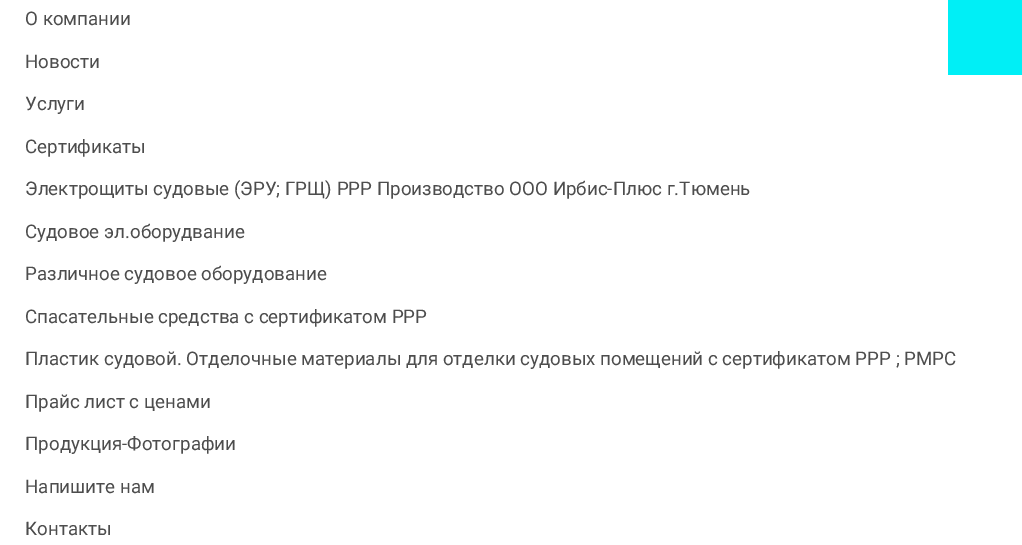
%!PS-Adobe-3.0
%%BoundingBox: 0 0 1022 545
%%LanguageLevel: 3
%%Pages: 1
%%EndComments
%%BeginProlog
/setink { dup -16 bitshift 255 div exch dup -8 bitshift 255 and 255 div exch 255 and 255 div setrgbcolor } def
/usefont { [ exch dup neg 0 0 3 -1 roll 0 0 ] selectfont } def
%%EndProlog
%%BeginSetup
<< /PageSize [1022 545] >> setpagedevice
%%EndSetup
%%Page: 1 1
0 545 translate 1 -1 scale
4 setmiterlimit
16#FFFFFF setink
0 0 1022 545 rectfill
/Roboto-Regular 18.75 usefont
16#4D4D4D setink
[
    [(О компании) 25 25]
    [(Новости) 25 68]
    [(Услуги) 25 110]
    [(Сертификаты) 25 153]
    [(Электрощиты судовые \(ЭРУ; ГРЩ\) РРР Производство ООО Ирбис-Плюс г.Тюмень) 25 195]
    [(Судовое эл.оборудвание) 25 238]
    [(Различное судовое оборудование) 25 280]
    [(Спасательные средства с сертификатом РРР) 25 323]
    [(Пластик судовой. Отделочные материалы для отделки судовых помещений с сертификатом РРР ; РМРС) 25 365]
    [(Прайс лист с ценами) 25 408]
    [(Продукция-Фотографии) 25 450]
    [(Напишите нам) 25 493]
    [(Контакты) 25 535]
] { aload pop moveto show } forall
16#00EFF6 setink
948 0 74 75 rectfill
showpage
%%EOF
